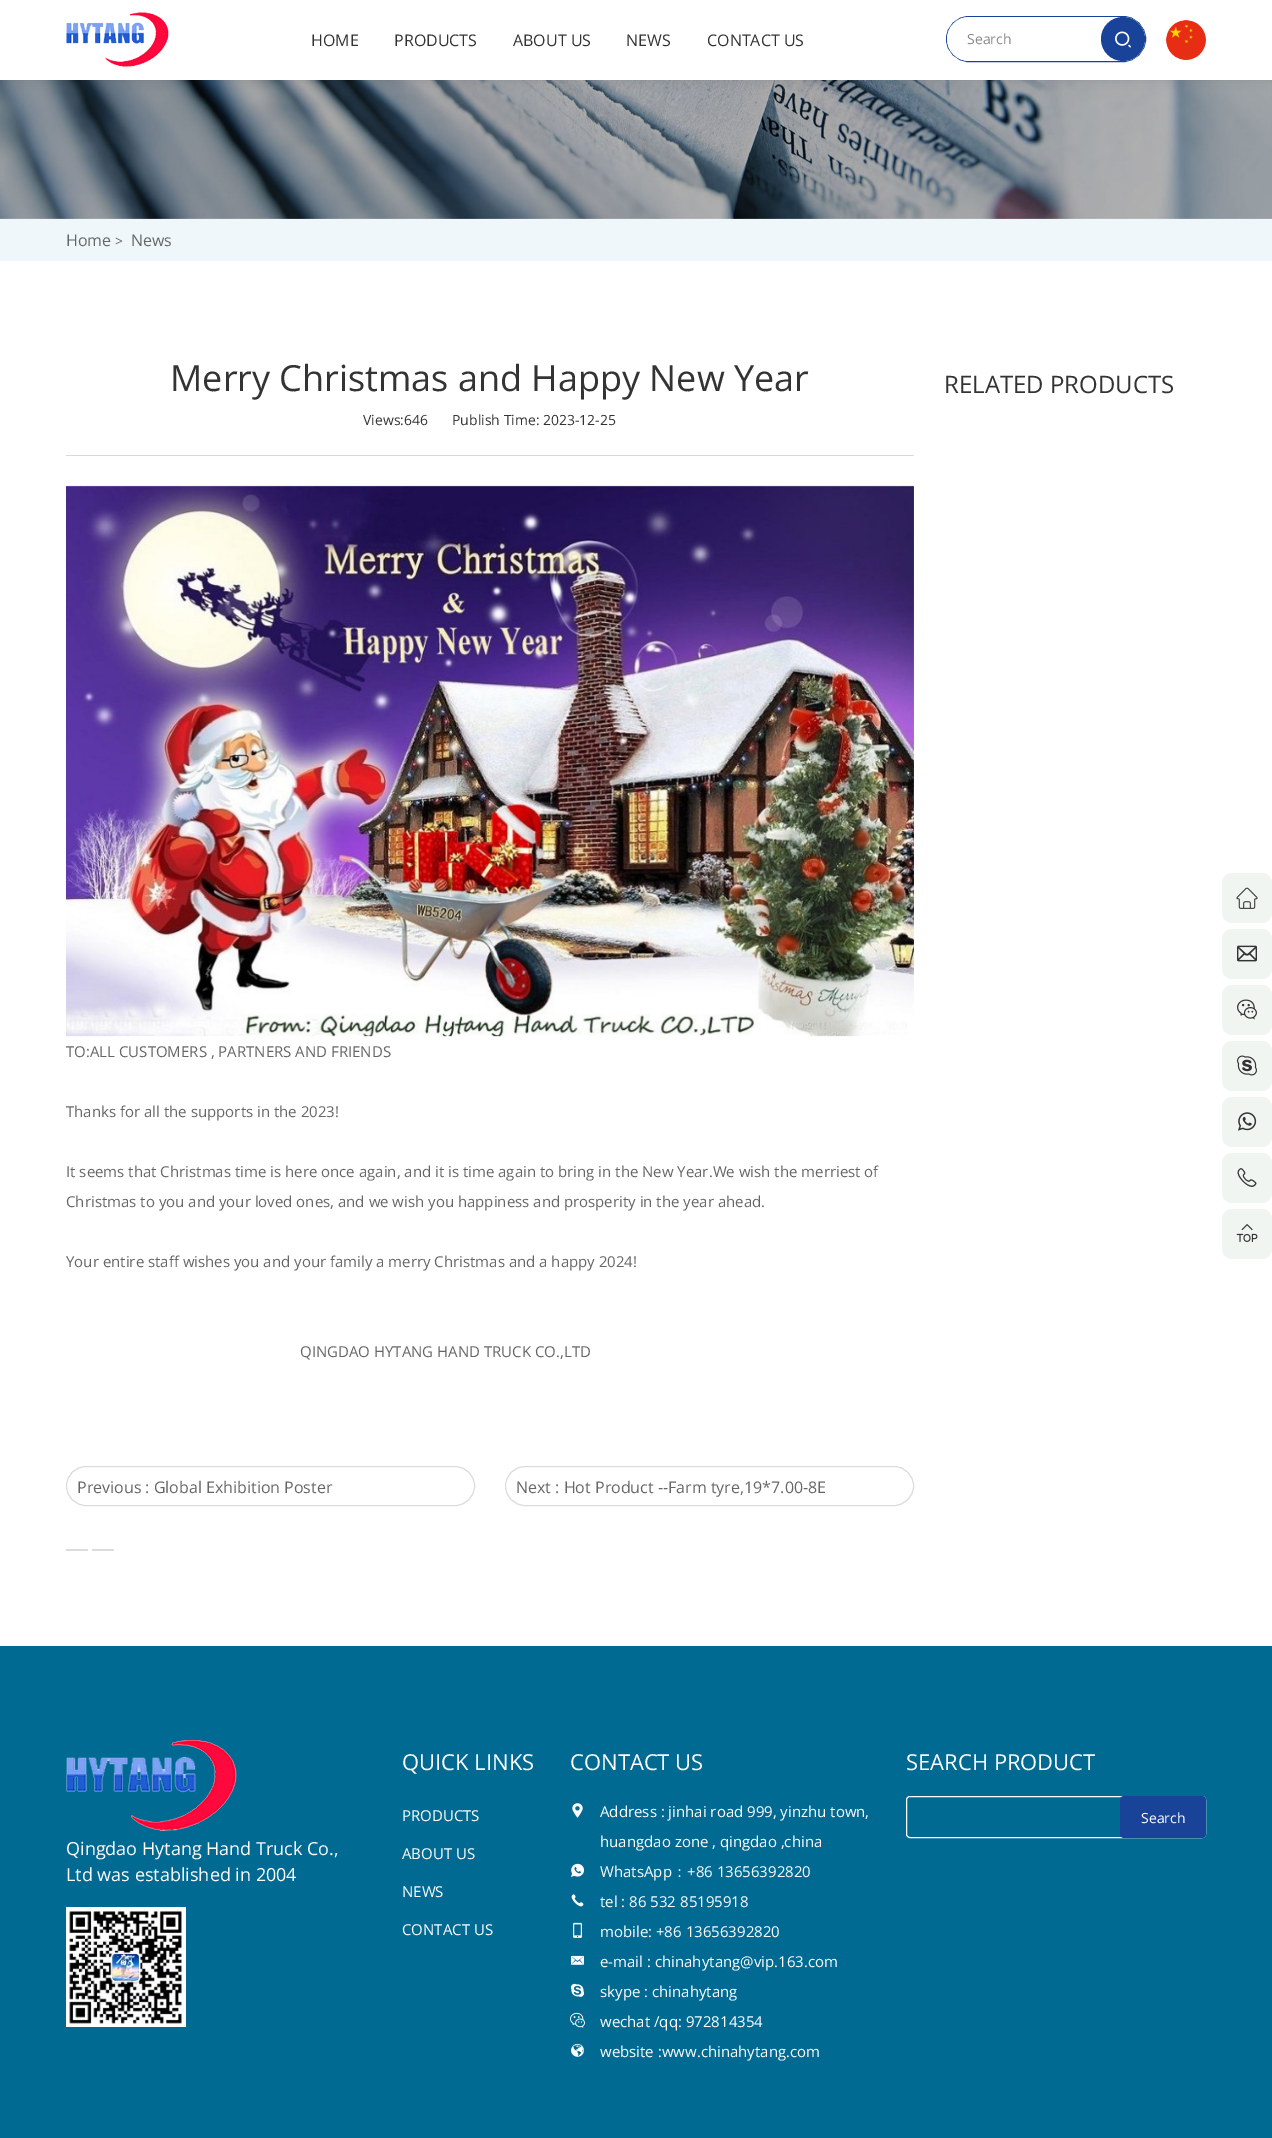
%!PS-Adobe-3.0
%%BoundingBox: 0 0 1272 2138
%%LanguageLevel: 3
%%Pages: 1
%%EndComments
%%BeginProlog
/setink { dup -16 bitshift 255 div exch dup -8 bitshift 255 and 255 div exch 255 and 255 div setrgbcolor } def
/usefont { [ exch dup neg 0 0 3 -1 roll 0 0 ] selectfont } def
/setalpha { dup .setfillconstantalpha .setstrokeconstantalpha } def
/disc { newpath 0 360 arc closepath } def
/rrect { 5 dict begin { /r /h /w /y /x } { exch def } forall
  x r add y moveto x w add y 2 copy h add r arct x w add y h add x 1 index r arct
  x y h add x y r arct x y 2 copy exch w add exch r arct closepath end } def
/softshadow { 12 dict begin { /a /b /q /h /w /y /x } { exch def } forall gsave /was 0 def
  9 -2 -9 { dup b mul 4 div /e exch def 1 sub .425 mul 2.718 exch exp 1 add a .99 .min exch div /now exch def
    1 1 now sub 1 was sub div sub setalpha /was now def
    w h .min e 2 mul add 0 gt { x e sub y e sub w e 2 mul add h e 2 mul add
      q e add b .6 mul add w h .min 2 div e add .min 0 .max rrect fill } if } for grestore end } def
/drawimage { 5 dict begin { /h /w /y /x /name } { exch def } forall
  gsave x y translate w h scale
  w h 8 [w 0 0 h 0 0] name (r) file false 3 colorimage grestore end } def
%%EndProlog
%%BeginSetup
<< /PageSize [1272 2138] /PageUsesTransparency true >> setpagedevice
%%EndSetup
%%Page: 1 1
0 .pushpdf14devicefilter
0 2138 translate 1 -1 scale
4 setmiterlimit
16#FFFFFF setink
0 0 1272 2138 rectfill
(img4.raw) 0 80 1272 139 drawimage
16#000000 setink
0 0 1272 80 0 5 0.1 softshadow
16#FFFFFF setink
0 0 1272 80 rectfill
(img1.raw) 66 12 103 55 drawimage
/OpenSans-Regular 16 usefont
16#333333 setink
[
    [(HOME) 311 46]
    [(PRODUCTS) 394 46]
    [(ABOUT US) 513 46]
    [(NEWS) 626 46]
    [(CONTACT US) 707 46]
] { aload pop moveto show } forall
16#194399 setink
946.5 16.5 199 45 22.5 rrect stroke
16#FFFFFF setink
947 17 198 44 22 rrect fill
/OpenSans-Regular 14 usefont
16#888888 setink
967 44 moveto (Search) show
16#194399 setink
1123 39 22 disc fill
(img2.raw) 1115 31 16 17 drawimage
(img3.raw) 1166 20 40 40 drawimage
16#F0F7FA setink
0 219 1272 42 rectfill
/OpenSans-Regular 16 usefont
16#666666 setink
66 246 moveto (Home) show
/OpenSans-Regular 14 usefont
115 246 moveto (>) show
/OpenSans-Regular 16 usefont
131 246 moveto (News) show
16#D9D9D9 setink
66 455 848 1 rectfill
/OpenSans-Regular 36 usefont
16#333333 setink
170 391 moveto (Merry Christmas and Happy New Year) show
/OpenSans-Regular 14 usefont
363 425 moveto (Views:646) show
452 425 moveto (Publish Time: 2023-12-25) show
(img5.raw) 66 485 848 552 drawimage
/OpenSans-Regular 15 usefont
16#666666 setink
[
    [(TO:ALL CUSTOMERS , PARTNERS AND FRIENDS) 66 1057]
    [(Thanks for all the supports in the 2023!) 66 1117]
    [(It seems that Christmas time is here once again, and it is time again to bring in the New Year.We wish the merriest of) 66 1177]
    [(Christmas to you and your loved ones, and we wish you happiness and prosperity in the year ahead.) 66 1207]
    [(Your entire staff wishes you and your family a merry Christmas and a happy 2024!) 66 1267]
    [(QINGDAO HYTANG HAND TRUCK CO.,LTD) 300 1357]
] { aload pop moveto show } forall
16#DCDCDC setink
66.5 1466.5 408 39 19.5 rrect stroke
/OpenSans-Regular 16 usefont
16#666666 setink
77 1493 moveto (Previous : Global Exhibition Poster) show
16#DCDCDC setink
505.5 1466.5 408 39 19.5 rrect stroke
16#666666 setink
516 1493 moveto (Next : Hot Product --Farm tyre,19*7.00-8E) show
16#DCDCDC setink
66 1549 22 2 1 rrect fill
92 1549 22 2 1 rrect fill
/OpenSans-Regular 24 usefont
16#333333 setink
944 393 moveto (RELATED PRODUCTS) show
16#F0F5F2 setink
1222 873 50 50 10 rrect fill
(img6.raw) 1236 887 22 22 drawimage
1222 929 50 50 10 rrect fill
(img7.raw) 1237 945 20 17 drawimage
1222 985 50 50 10 rrect fill
(img8.raw) 1237 999 20 21 drawimage
1222 1041 50 50 10 rrect fill
(img9.raw) 1237 1055 20 21 drawimage
1222 1097 50 50 10 rrect fill
(img10.raw) 1237 1112 20 19 drawimage
1222 1153 50 50 10 rrect fill
(img11.raw) 1237 1168 20 19 drawimage
1222 1209 50 50 10 rrect fill
(img12.raw) 1236 1224 22 18 drawimage
16#006A93 setink
0 1646 1272 492 rectfill
/OpenSans-Regular 22 usefont
16#FFFFFF setink
402 1770 moveto (QUICK LINKS) show
/OpenSans-Regular 15 usefont
[
    [(PRODUCTS) 402 1821]
    [(ABOUT US) 402 1859]
    [(NEWS) 402 1897]
    [(CONTACT US) 402 1935]
] { aload pop moveto show } forall
/OpenSans-Regular 22 usefont
570 1770 moveto (CONTACT US) show
(img13.raw) 572 1803 11 15 drawimage
/OpenSans-Regular 15 usefont
600 1817 moveto (Address : jinhai road 999, yinzhu town,) show
600 1847 moveto (huangdao zone , qingdao ,china) show
(img14.raw) 571 1863 14 14 drawimage
600 1877 moveto (WhatsApp) show
/WenQuanYiZenHei-Medium 15 usefont
672 1877 moveto (：) show
/OpenSans-Regular 15 usefont
687 1877 moveto (+86 13656392820) show
(img15.raw) 571 1894 13 13 drawimage
600 1907 moveto (tel : 86 532 85195918) show
(img16.raw) 573 1922 9 16 drawimage
600 1937 moveto (mobile: +86 13656392820) show
(img17.raw) 571 1955 13 10 drawimage
600 1967 moveto (e-mail : chinahytang@vip.163.com) show
(img18.raw) 570 1983 15 14 drawimage
600 1997 moveto (skype : chinahytang) show
(img19.raw) 570 2012 15 16 drawimage
600 2027 moveto (wechat /qq: 972814354) show
(img20.raw) 571 2043 13 14 drawimage
600 2057 moveto (website :www.chinahytang.com) show
/OpenSans-Regular 22 usefont
906 1770 moveto (SEARCH PRODUCT) show
906.5 1796.5 299 41 3.5 rrect stroke
16#194399 setink
1120 1796 86 42 4 rrect fill
/OpenSans-Regular 14 usefont
16#FFFFFF setink
1141 1823 moveto (Search) show
(img21.raw) 66 1740 171 91 drawimage
/OpenSans-Regular 18 usefont
66 1855 moveto (Qingdao Hytang Hand Truck Co.,) show
66 1881 moveto (Ltd was established in 2004) show
(img22.raw) 66 1907 120 120 drawimage
.poppdf14devicefilter showpage
%%EOF
